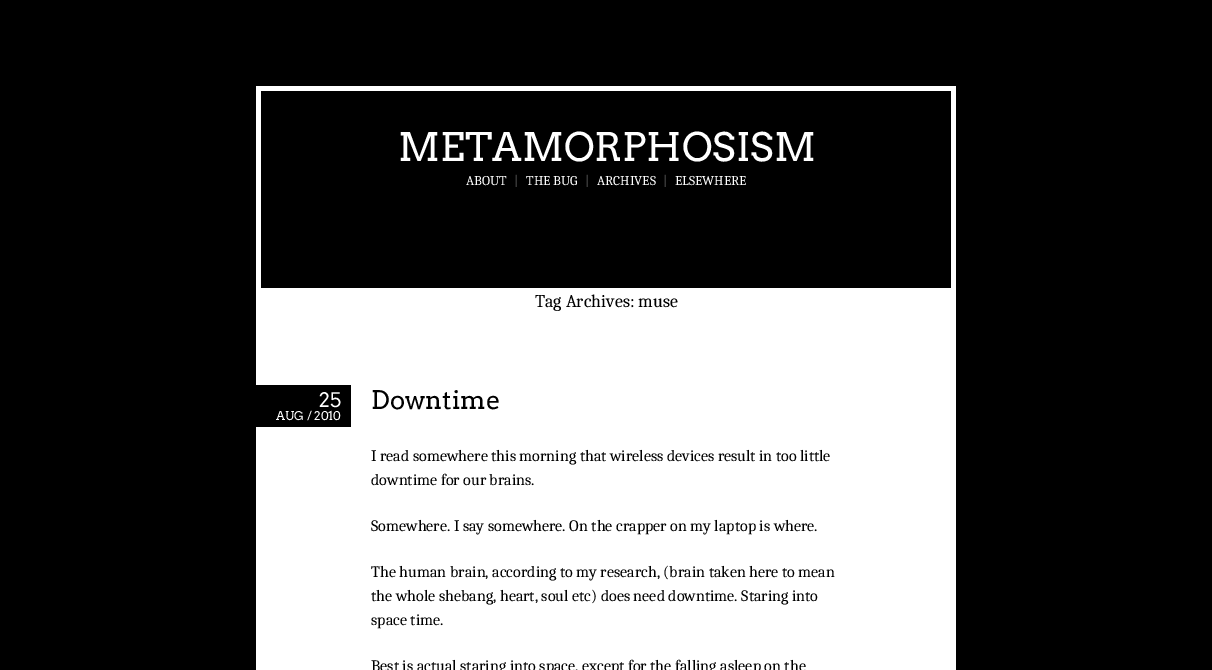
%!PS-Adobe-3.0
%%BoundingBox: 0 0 1212 670
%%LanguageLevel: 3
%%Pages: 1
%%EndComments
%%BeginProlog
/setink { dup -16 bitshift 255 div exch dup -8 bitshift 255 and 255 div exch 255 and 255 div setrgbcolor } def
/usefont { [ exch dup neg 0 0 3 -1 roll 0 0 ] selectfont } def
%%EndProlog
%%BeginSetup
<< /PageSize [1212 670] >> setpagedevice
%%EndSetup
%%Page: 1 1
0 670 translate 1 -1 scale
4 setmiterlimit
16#000000 setink
0 0 1212 670 rectfill
16#FFFFFF setink
256 86 700 584 rectfill
16#000000 setink
261 91 690 197 rectfill
/Arvo-Regular 39.25 usefont
16#FFFFFF setink
398 161 moveto (METAMORPHOSISM) show
/Caladea-Regular 13.5 usefont
466 185 moveto (ABOUT) show
16#666666 setink
514 185 moveto (|) show
16#FFFFFF setink
526 185 moveto (THE BUG) show
16#666666 setink
585 185 moveto (|) show
16#FFFFFF setink
597 185 moveto (ARCHIVES) show
16#666666 setink
663 185 moveto (|) show
16#FFFFFF setink
675 185 moveto (ELSEWHERE) show
/Caladea-Regular 18 usefont
16#000000 setink
535 307 moveto (Tag Archives: muse) show
256 385 95 42 rectfill
/Arvo-Regular 20 usefont
16#FFFFFF setink
319 407 moveto (25) show
/Arvo-Regular 12 usefont
276 420 moveto (AUG / 2010) show
/Arvo-Regular 25.5 usefont
16#000000 setink
371 409 moveto (Downtime) show
/Caladea-Regular 16 usefont
[
    [(I read somewhere this morning that wireless devices result in too little) 371 461]
    [(downtime for our brains.) 371 485]
    [(Somewhere. I say somewhere. On the crapper on my laptop is where.) 371 531]
    [(The human brain, according to my research, \(brain taken here to mean) 371 577]
    [(the whole shebang, heart, soul etc\) does need downtime. Staring into) 371 601]
    [(space time.) 371 625]
    [(Best is actual staring into space, except for the falling asleep on the) 371 671]
] { aload pop moveto show } forall
showpage
%%EOF
